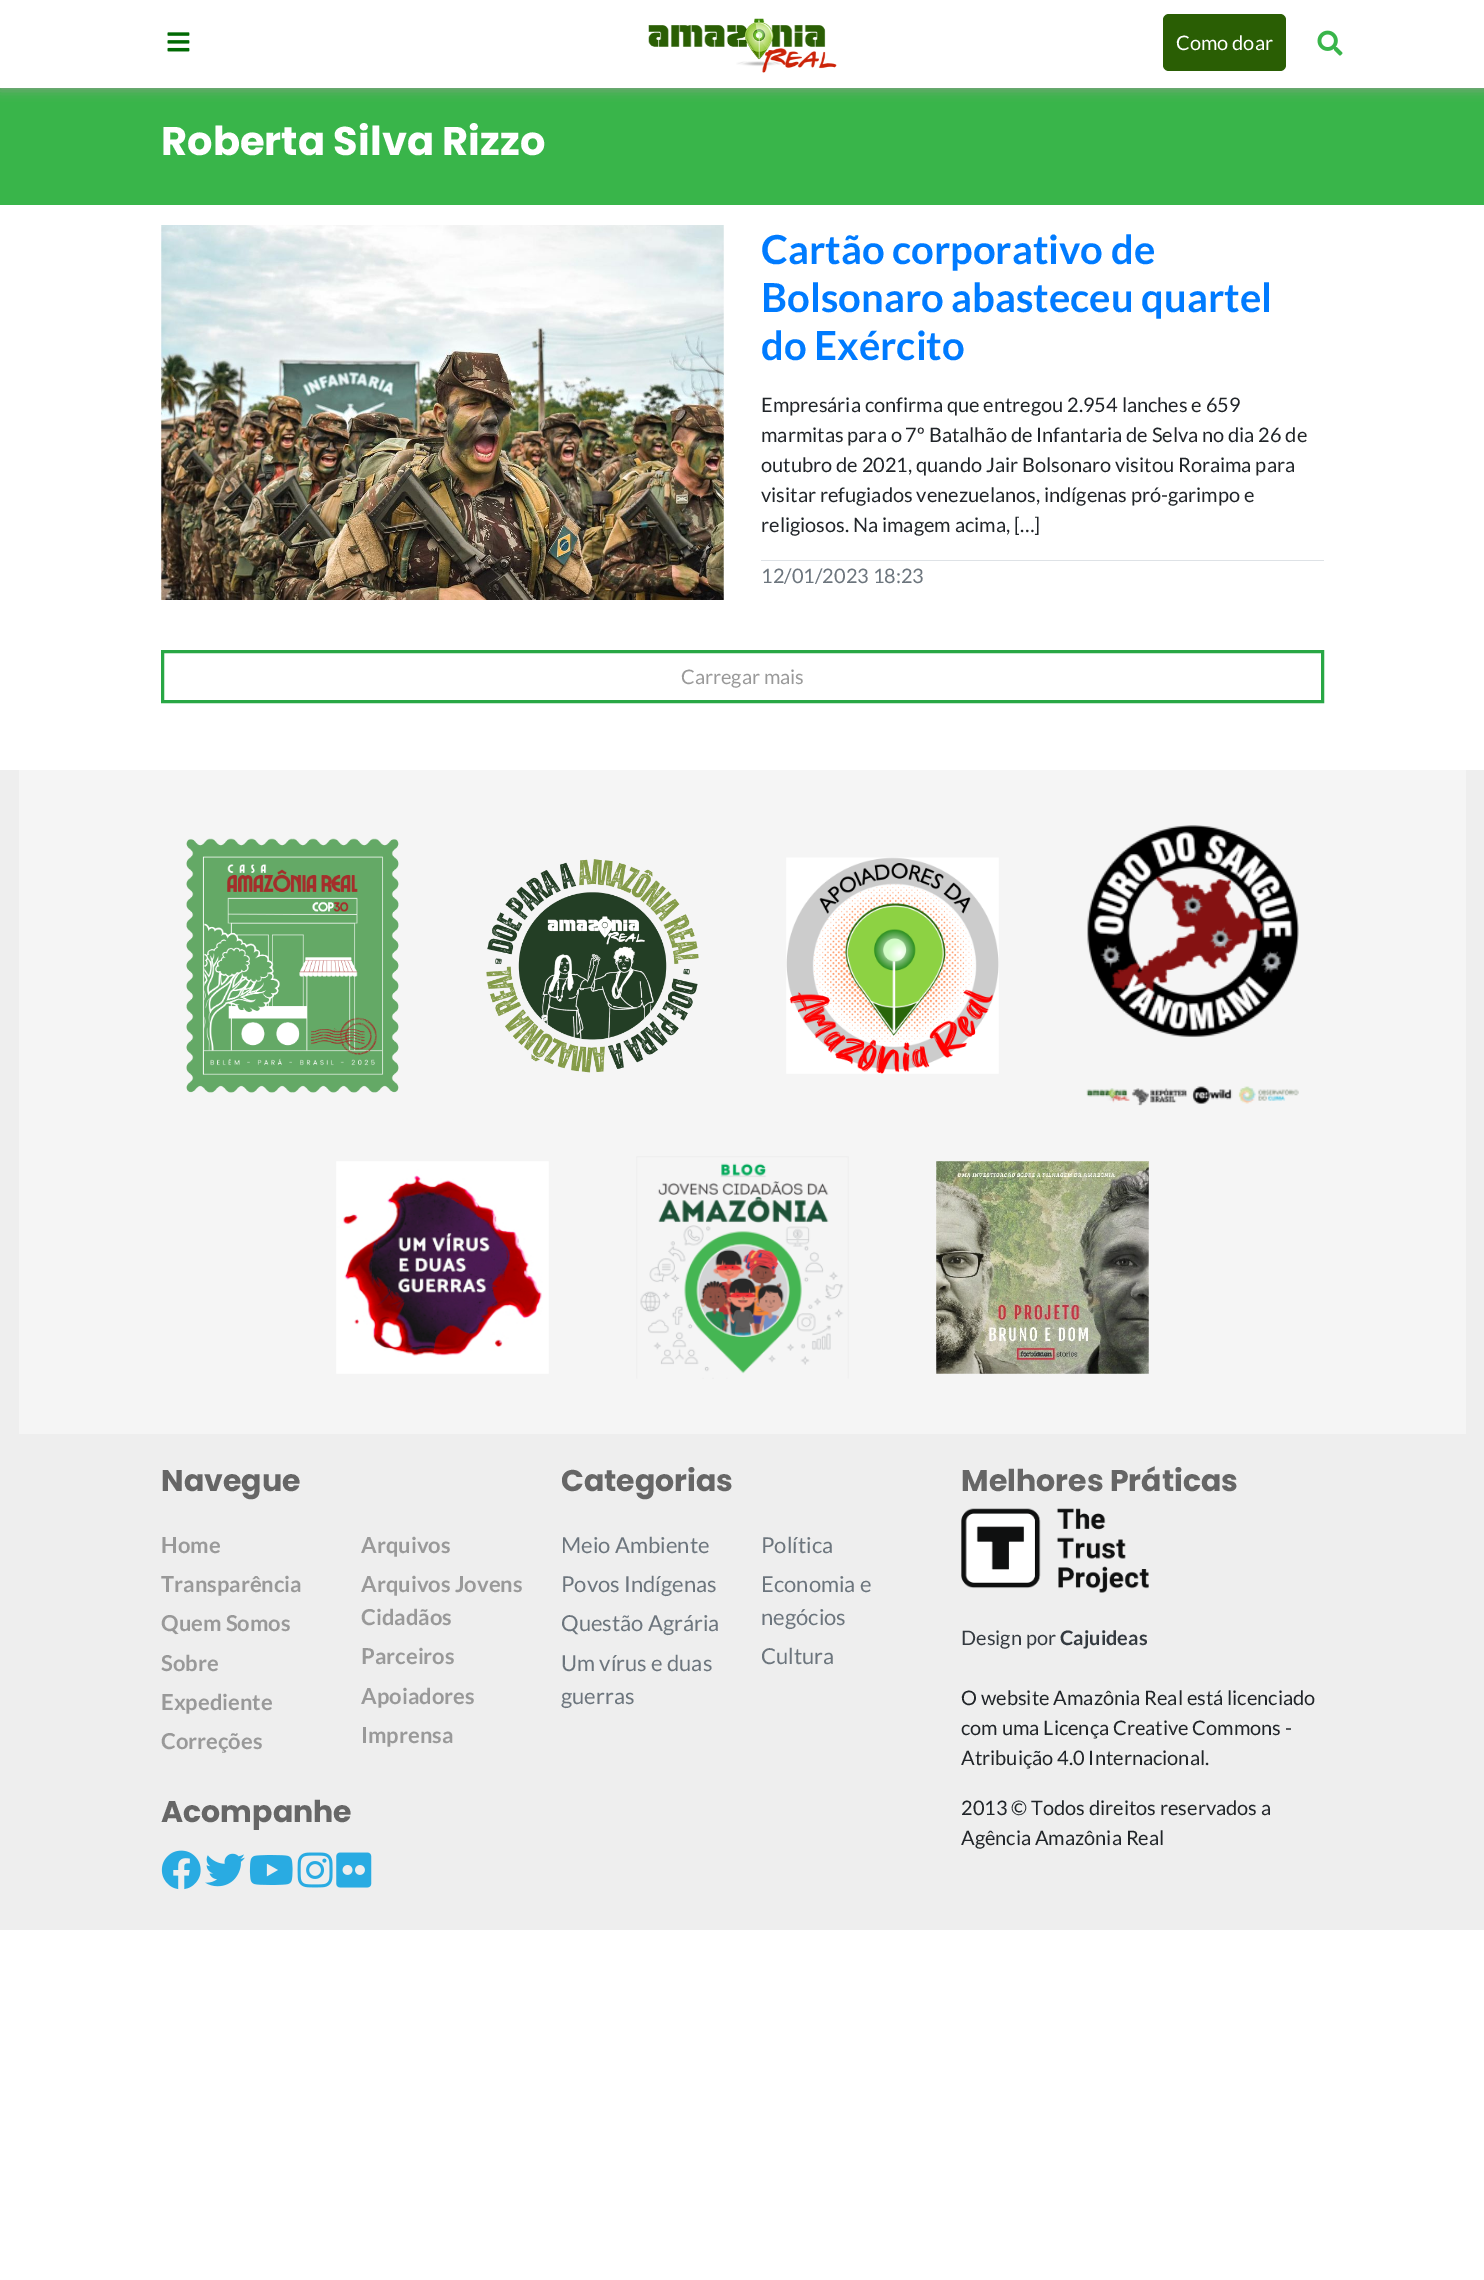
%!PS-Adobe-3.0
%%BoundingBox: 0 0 1484 2280
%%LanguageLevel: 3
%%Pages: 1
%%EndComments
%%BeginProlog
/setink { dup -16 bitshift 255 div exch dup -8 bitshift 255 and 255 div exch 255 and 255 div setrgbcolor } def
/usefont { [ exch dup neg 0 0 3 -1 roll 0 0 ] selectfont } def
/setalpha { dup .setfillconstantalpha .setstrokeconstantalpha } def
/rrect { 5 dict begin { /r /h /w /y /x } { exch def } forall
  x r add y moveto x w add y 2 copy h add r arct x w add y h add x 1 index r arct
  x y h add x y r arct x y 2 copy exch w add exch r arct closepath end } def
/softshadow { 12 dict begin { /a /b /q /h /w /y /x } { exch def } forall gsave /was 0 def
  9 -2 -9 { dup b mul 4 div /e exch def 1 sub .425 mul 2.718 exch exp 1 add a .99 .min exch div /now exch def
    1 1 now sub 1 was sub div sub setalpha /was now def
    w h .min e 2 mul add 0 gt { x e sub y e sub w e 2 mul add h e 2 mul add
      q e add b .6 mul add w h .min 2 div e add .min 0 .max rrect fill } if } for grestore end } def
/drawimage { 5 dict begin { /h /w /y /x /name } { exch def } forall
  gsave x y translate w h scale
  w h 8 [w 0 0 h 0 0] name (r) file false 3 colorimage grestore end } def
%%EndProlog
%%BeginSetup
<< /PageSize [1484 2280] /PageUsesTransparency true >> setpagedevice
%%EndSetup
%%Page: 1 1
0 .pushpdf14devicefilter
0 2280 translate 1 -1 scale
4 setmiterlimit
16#FFFFFF setink
0 0 1484 2280 rectfill
16#39B54A setink
0 88 1484 117 rectfill
16#999999 setink
0 0 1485 88 0 6 1 softshadow
16#FFFFFF setink
0 0 1484 88 rectfill
(img1.raw) 167 32 23 20 drawimage
(img2.raw) 648 18 189 55 drawimage
16#2A5E04 setink
1163 14 123 57 6 rrect fill
/Lato-Regular 20 usefont
16#FFFFFF setink
1176 50 moveto (Como doar) show
(img3.raw) 1317 30 26 26 drawimage
/Poppins-Bold 40 usefont
161 155 moveto (Roberta Silva Rizzo) show
(img4.raw) 161 225 563 375 drawimage
/Lato-Bold 40 usefont
16#007BFF setink
[
    [(Cartão corporativo de) 761 264]
    [(Bolsonaro abasteceu quartel) 761 312]
    [(do Exército) 761 360]
] { aload pop moveto show } forall
/Lato-Regular 20 usefont
16#212529 setink
[
    [(Empresária confirma que entregou 2.954 lanches e 659) 761 412]
    [(marmitas para o 7º Batalhão de Infantaria de Selva no dia 26 de) 761 442]
    [(outubro de 2021, quando Jair Bolsonaro visitou Roraima para) 761 472]
    [(visitar refugiados venezuelanos, indígenas pró-garimpo e) 761 502]
    [(religiosos. Na imagem acima, […]) 761 532]
] { aload pop moveto show } forall
16#DEE2E6 setink
761 560 563 1 rectfill
16#6C757D setink
761 583 moveto (12/01/2023 18:23) show
16#28A745 setink
3 setlinewidth
162.5 651.5 1160 50 rectstroke
16#999999 setink
681 684 moveto (Carregar mais) show
16#EEEEEE setink
0 770 1484 1160 rectfill
16#F5F5F5 setink
19 770 1447 664 rectfill
(img5.raw) 186 838 213 255 drawimage
(img6.raw) 486 859 213 214 drawimage
(img7.raw) 786 857 213 217 drawimage
(img8.raw) 1086 825 213 281 drawimage
(img9.raw) 336 1161 213 213 drawimage
(img10.raw) 636 1156 213 223 drawimage
(img11.raw) 936 1161 213 213 drawimage
/Poppins-Bold 30 usefont
16#666666 setink
161 1491 moveto (Navegue) show
/Lato-Bold 22 usefont
16#999999 setink
[
    [(Home) 161 1553]
    [(Transparência) 161 1592]
    [(Quem Somos) 161 1631]
    [(Sobre) 161 1671]
    [(Expediente) 161 1710]
    [(Correções) 161 1749]
    [(Arquivos) 361 1553]
    [(Arquivos Jovens) 361 1592]
    [(Cidadãos) 361 1625]
    [(Parceiros) 361 1664]
    [(Apoiadores) 361 1704]
    [(Imprensa) 361 1743]
] { aload pop moveto show } forall
/Poppins-Bold 30 usefont
16#666666 setink
161 1822 moveto (Acompanhe) show
(img12.raw) 161 1850 40 40 drawimage
(img13.raw) 205 1853 40 34 drawimage
(img14.raw) 249 1855 44 30 drawimage
(img15.raw) 297 1852 36 36 drawimage
(img16.raw) 336 1852 36 36 drawimage
561 1491 moveto (Categorias) show
/Lato-Regular 22 usefont
16#6C757D setink
[
    [(Meio Ambiente) 561 1553]
    [(Povos Indígenas) 561 1592]
    [(Questão Agrária) 561 1631]
    [(Um vírus e duas) 561 1671]
    [(guerras) 561 1704]
    [(Política) 761 1553]
    [(Economia e) 761 1592]
    [(negócios) 761 1625]
    [(Cultura) 761 1664]
] { aload pop moveto show } forall
/Poppins-Bold 30 usefont
16#666666 setink
961 1491 moveto (Melhores Práticas) show
(img17.raw) 961 1508 188 85 drawimage
/Lato-Regular 20 usefont
16#343A40 setink
961 1645 moveto (Design por) show
/Lato-Bold 20 usefont
1060 1645 moveto (Cajuideas) show
/Lato-Regular 20 usefont
16#212529 setink
[
    [(O website Amazônia Real está licenciado) 961 1705]
    [(com uma Licença Creative Commons -) 961 1735]
    [(Atribuição 4.0 Internacional.) 961 1765]
    [(2013 © Todos direitos reservados a) 961 1815]
    [(Agência Amazônia Real) 961 1845]
] { aload pop moveto show } forall
.poppdf14devicefilter showpage
%%EOF
